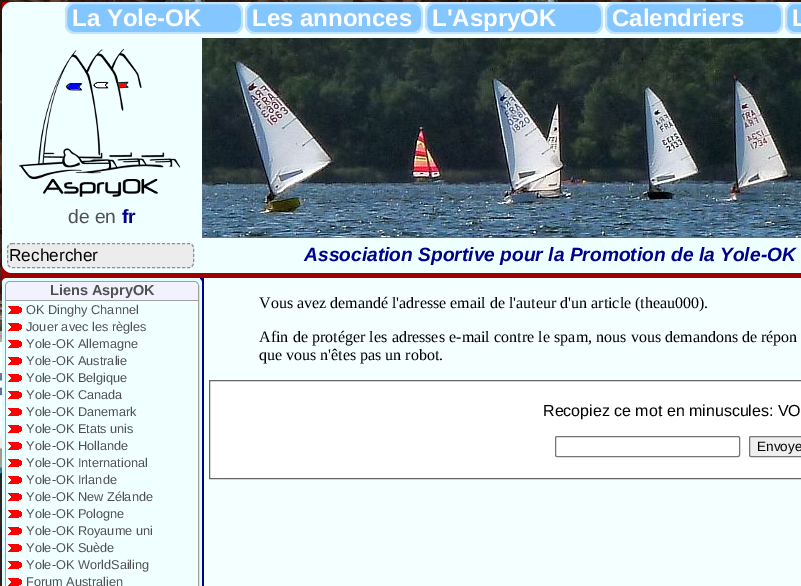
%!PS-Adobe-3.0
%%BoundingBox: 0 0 801 586
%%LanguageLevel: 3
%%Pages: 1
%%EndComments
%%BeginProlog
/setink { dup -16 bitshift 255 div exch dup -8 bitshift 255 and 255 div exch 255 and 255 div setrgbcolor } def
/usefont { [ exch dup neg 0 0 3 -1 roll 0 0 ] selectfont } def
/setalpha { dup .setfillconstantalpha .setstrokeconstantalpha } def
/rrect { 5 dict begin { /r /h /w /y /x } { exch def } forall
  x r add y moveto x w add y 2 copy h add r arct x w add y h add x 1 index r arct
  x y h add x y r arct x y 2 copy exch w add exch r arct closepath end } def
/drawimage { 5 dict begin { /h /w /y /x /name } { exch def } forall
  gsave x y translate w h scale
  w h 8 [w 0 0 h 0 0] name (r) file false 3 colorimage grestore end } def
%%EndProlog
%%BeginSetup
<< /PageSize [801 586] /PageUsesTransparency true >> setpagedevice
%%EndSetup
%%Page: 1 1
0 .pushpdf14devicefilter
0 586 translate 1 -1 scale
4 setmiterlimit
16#FFFFFF setink
0 0 801 586 rectfill
(img1.raw) 0 0 801 586 drawimage
16#A00000 setink
2 2 799 281 rectfill
16#F0FFFF setink
2 2 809 271 10 rrect fill
16#84C6FF setink
65 2 178 32 10 rrect fill
0.5 setalpha
16#FFFFFF setink
2 setlinewidth
66 3 176 30 9 rrect stroke
/LiberationSans-Bold 24 usefont
1 setalpha
72 26 moveto (La Yole-OK) show
16#84C6FF setink
245 2 178 32 10 rrect fill
0.5 setalpha
16#FFFFFF setink
246 3 176 30 9 rrect stroke
1 setalpha
252 26 moveto (Les annonces) show
16#84C6FF setink
425 2 178 32 10 rrect fill
0.5 setalpha
16#FFFFFF setink
426 3 176 30 9 rrect stroke
1 setalpha
432 26 moveto (L'AspryOK) show
16#84C6FF setink
605 2 178 32 10 rrect fill
0.5 setalpha
16#FFFFFF setink
606 3 176 30 9 rrect stroke
1 setalpha
612 26 moveto (Calendriers) show
16#84C6FF setink
785 2 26 32 10 rrect fill
0.5 setalpha
16#FFFFFF setink
786 3 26 30 9 rrect stroke
1 setalpha
792 26 moveto (L) show
(img2.raw) 14 44 172 156 drawimage
(img3.raw) 202 38 599 200 drawimage
/LiberationSans-Regular 19.2 usefont
16#505050 setink
68 223 moveto (de en) show
/LiberationSans-Bold 19.2 usefont
16#00008B setink
122 223 moveto (fr) show
16#ECECEC setink
7 243 187 25 5 rrect fill
16#909090 setink
1 setlinewidth
[3 2] 0 setdash
12 243.5 moveto 189 243.5 lineto 191.5 243.5 193.5 245.5 193.5 248 curveto 193.5 263 lineto 193.5 265.5 191.5 267.5 189 267.5 curveto 12 267.5 lineto 9.5 267.5 7.5 265.5 7.5 263 curveto 7.5 248 lineto 7.5 245.5 9.5 243.5 12 243.5 curveto closepath stroke
/LiberationSans-Regular 17.25 usefont
16#000000 setink
9 261 moveto (Rechercher) show
/LiberationSans-BoldItalic 19.2 usefont
16#00008B setink
304 261 moveto (Association Sportive pour la Promotion de la Yole-OK) show
(img4.raw) 2 278 799 308 drawimage
16#E0FFFF setink
2 278 200 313 5 rrect fill
16#A0A0A0 setink
[] 0 setdash
5.5 281.5 193 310 4.5 rrect stroke
16#F0FFFF setink
6 282 192 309 5 rrect fill
16#F2F2FF setink
11 282 moveto 193 282 lineto 196 282 198 284 198 287 curveto 198 301 lineto 6 301 lineto 6 287 lineto 6 284 8 282 11 282 curveto closepath fill
16#A0A0A0 setink
6 300 192 1 rectfill
/LiberationSans-Bold 14.5 usefont
16#505050 setink
50 295 moveto (Liens AspryOK) show
(img5.raw) 8 306 14 8 drawimage
/LiberationSans-Regular 12.75 usefont
26 314 moveto (OK Dinghy Channel) show
(img5.raw) 8 323 14 8 drawimage
26 331 moveto (Jouer avec les règles) show
(img5.raw) 8 340 14 8 drawimage
26 348 moveto (Yole-OK Allemagne) show
(img5.raw) 8 357 14 8 drawimage
26 365 moveto (Yole-OK Australie) show
(img5.raw) 8 374 14 8 drawimage
26 382 moveto (Yole-OK Belgique) show
(img5.raw) 8 391 14 8 drawimage
26 399 moveto (Yole-OK Canada) show
(img5.raw) 8 408 14 8 drawimage
26 416 moveto (Yole-OK Danemark) show
(img5.raw) 8 425 14 8 drawimage
26 433 moveto (Yole-OK Etats unis) show
(img5.raw) 8 442 14 8 drawimage
26 450 moveto (Yole-OK Hollande) show
(img5.raw) 8 459 14 8 drawimage
26 467 moveto (Yole-OK International) show
(img5.raw) 8 476 14 8 drawimage
26 484 moveto (Yole-OK Irlande) show
(img5.raw) 8 493 14 8 drawimage
26 501 moveto (Yole-OK New Zélande) show
(img5.raw) 8 510 14 8 drawimage
26 518 moveto (Yole-OK Pologne) show
(img5.raw) 8 527 14 8 drawimage
26 535 moveto (Yole-OK Royaume uni) show
(img5.raw) 8 544 14 8 drawimage
26 552 moveto (Yole-OK Suède) show
(img5.raw) 8 561 14 8 drawimage
26 569 moveto (Yole-OK WorldSailing) show
(img5.raw) 8 578 14 8 drawimage
26 586 moveto (Forum Australien) show
/LiberationSerif-Regular 16 usefont
16#000000 setink
259 308 moveto (Vous avez demandé l'adresse email de l'auteur d'un article \(theau000\).) show
259 342 moveto 0.25 0 32 (Afin de protéger les adresses e-mail contre le spam, nous vous demandons de) widthshow
761 342 moveto (répon) show
259 360 moveto (que vous n'êtes pas un robot.) show
16#FFFFFF setink
209.5 380.5 moveto 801.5 380.5 lineto 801.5 478.5 lineto 209.5 478.5 lineto closepath gsave fill grestore
16#666666 setink
stroke
/LiberationSans-Regular 16 usefont
16#000000 setink
543 416 moveto (Recopiez ce mot en minuscules: VO) show
16#767676 setink
555.5 436.5 184 20 1.5 rrect stroke
16#EFEFEF setink
749.5 436.5 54 20 1.5 rrect gsave fill grestore
16#767676 setink
stroke
/LiberationSans-Regular 13.5 usefont
16#000000 setink
757 451 moveto (Envoye) show
.poppdf14devicefilter showpage
%%EOF
